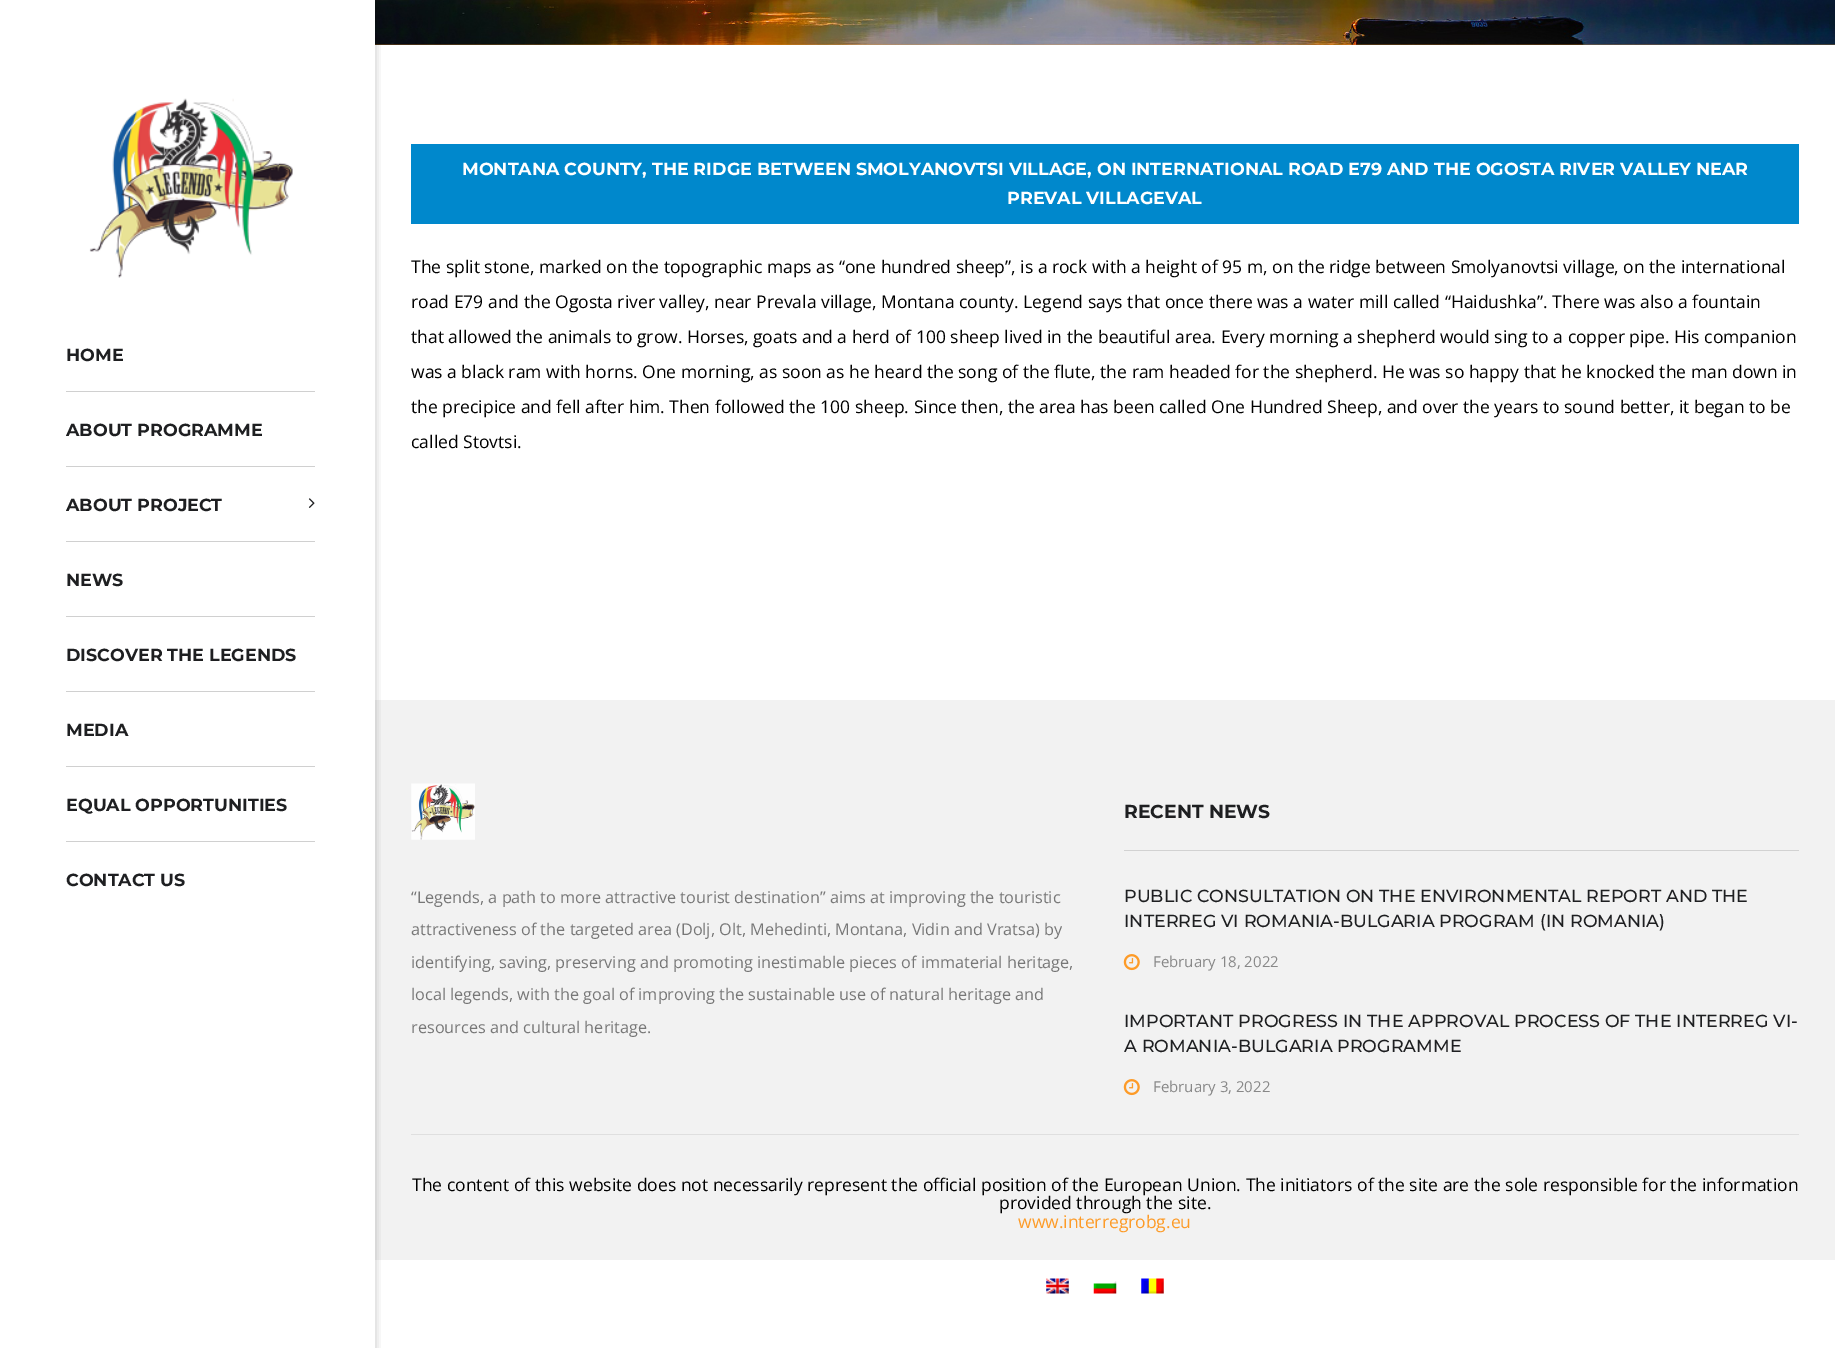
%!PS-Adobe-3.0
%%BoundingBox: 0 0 1835 1348
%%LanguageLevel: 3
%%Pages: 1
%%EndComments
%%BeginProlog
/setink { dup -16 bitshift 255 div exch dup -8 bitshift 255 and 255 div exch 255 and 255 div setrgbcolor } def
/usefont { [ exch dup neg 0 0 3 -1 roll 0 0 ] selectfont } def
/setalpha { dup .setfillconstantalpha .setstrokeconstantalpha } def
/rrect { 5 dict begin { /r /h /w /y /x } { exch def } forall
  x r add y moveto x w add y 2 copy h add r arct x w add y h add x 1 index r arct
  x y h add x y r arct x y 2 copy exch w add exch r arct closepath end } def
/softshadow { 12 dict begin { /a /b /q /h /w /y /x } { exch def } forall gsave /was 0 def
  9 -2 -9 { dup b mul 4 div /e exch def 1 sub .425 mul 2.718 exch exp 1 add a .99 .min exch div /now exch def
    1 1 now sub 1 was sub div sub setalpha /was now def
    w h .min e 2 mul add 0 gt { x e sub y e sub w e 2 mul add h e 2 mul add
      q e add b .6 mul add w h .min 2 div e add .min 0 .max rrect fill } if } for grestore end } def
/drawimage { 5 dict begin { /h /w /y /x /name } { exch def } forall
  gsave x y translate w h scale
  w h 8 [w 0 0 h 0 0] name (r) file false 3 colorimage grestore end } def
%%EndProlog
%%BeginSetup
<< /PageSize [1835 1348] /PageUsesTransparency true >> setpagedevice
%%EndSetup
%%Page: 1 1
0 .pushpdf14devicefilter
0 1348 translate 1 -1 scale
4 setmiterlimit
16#FFFFFF setink
0 0 1835 1348 rectfill
(img1.raw) 375 0 1460 45 drawimage
16#0088CC setink
411 144 1388 80 rectfill
/Montserrat-Bold 17.5 usefont
16#FFFFFF setink
462 175 moveto (MONTANA COUNTY, THE RIDGE BETWEEN SMOLYANOVTSI VILLAGE, ON INTERNATIONAL ROAD E79 AND THE OGOSTA RIVER VALLEY NEAR) show
1007 204 moveto (PREVAL VILLAGEVAL) show
/OpenSans-Regular 17.5 usefont
16#000000 setink
[
    [(The split stone, marked on the topographic maps as “one hundred sheep”, is a rock with a height of 95 m, on the ridge between Smolyanovtsi village, on the international) 411 273]
    [(road E79 and the Ogosta river valley, near Prevala village, Montana county. Legend says that once there was a water mill called “Haidushka”. There was also a fountain) 411 308]
    [(that allowed the animals to grow. Horses, goats and a herd of 100 sheep lived in the beautiful area. Every morning a shepherd would sing to a copper pipe. His companion) 411 343]
    [(was a black ram with horns. One morning, as soon as he heard the song of the flute, the ram headed for the shepherd. He was so happy that he knocked the man down in) 411 378]
    [(the precipice and fell after him. Then followed the 100 sheep. Since then, the area has been called One Hundred Sheep, and over the years to sound better, it began to be) 411 413]
    [(called Stovtsi.) 411 448]
] { aload pop moveto show } forall
16#F2F2F2 setink
375 700 1460 560 rectfill
gsave
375 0 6 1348 rectclip
16#000000 setink
1 0 375 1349 0 4 0.2 softshadow
grestore
(img2.raw) 89 98 204 180 drawimage
/Montserrat-Bold 17.5 usefont
16#1E1F21 setink
66 361 moveto (HOME) show
16#D0D0D0 setink
66 391 249 1 rectfill
16#1E1F21 setink
66 436 moveto (ABOUT PROGRAMME) show
16#D0D0D0 setink
66 466 249 1 rectfill
16#1E1F21 setink
66 511 moveto (ABOUT PROJECT) show
(img3.raw) 308 498 7 10 drawimage
16#D0D0D0 setink
66 541 249 1 rectfill
16#1E1F21 setink
66 586 moveto (NEWS) show
16#D0D0D0 setink
66 616 249 1 rectfill
16#1E1F21 setink
66 661 moveto (DISCOVER THE LEGENDS) show
16#D0D0D0 setink
66 691 249 1 rectfill
16#1E1F21 setink
66 736 moveto (MEDIA) show
16#D0D0D0 setink
66 766 249 1 rectfill
16#1E1F21 setink
66 811 moveto (EQUAL OPPORTUNITIES) show
16#D0D0D0 setink
66 841 249 1 rectfill
16#1E1F21 setink
66 886 moveto (CONTACT US) show
(img4.raw) 411 783 64 57 drawimage
/OpenSans-Regular 16.25 usefont
16#777777 setink
[
    [(“Legends, a path to more attractive tourist destination” aims at improving the touristic) 411 903]
    [(attractiveness of the targeted area \(Dolj, Olt, Mehedinti, Montana, Vidin and Vratsa\) by) 411 935]
    [(identifying, saving, preserving and promoting inestimable pieces of immaterial heritage,) 411 968]
    [(local legends, with the goal of improving the sustainable use of natural heritage and) 411 1000]
    [(resources and cultural heritage.) 411 1033]
] { aload pop moveto show } forall
16#D2D2D2 setink
1124 850 675 1 rectfill
/Montserrat-Bold 18.75 usefont
16#1E1F21 setink
1124 818 moveto (RECENT NEWS) show
/Montserrat-Medium 17.5 usefont
1124 902 moveto (PUBLIC CONSULTATION ON THE ENVIRONMENTAL REPORT AND THE) show
1124 927 moveto (INTERREG VI ROMANIA-BULGARIA PROGRAM \(IN ROMANIA\)) show
(img5.raw) 1123 954 17 17 drawimage
/OpenSans-Regular 15 usefont
16#888888 setink
1153 967 moveto (February 18, 2022) show
/Montserrat-Medium 17.5 usefont
16#1E1F21 setink
1124 1027 moveto (IMPORTANT PROGRESS IN THE APPROVAL PROCESS OF THE INTERREG VI-) show
1124 1052 moveto (A ROMANIA-BULGARIA PROGRAMME) show
(img5.raw) 1123 1079 17 17 drawimage
/OpenSans-Regular 15 usefont
16#888888 setink
1153 1092 moveto (February 3, 2022) show
16#DFDFDF setink
411 1134 1388 1 rectfill
/OpenSans-Regular 17.5 usefont
16#000000 setink
412 1191 moveto (The content of this website does not necessarily represent the official position of the European Union. The initiators of the site are the sole responsible for the information) show
999 1209 moveto (provided through the site.) show
16#FD9B28 setink
1018 1228 moveto (www.interregrobg.eu) show
(img6.raw) 1046 1278 23 16 drawimage
(img7.raw) 1093 1281 24 13 drawimage
(img8.raw) 1141 1278 23 16 drawimage
.poppdf14devicefilter showpage
%%EOF
